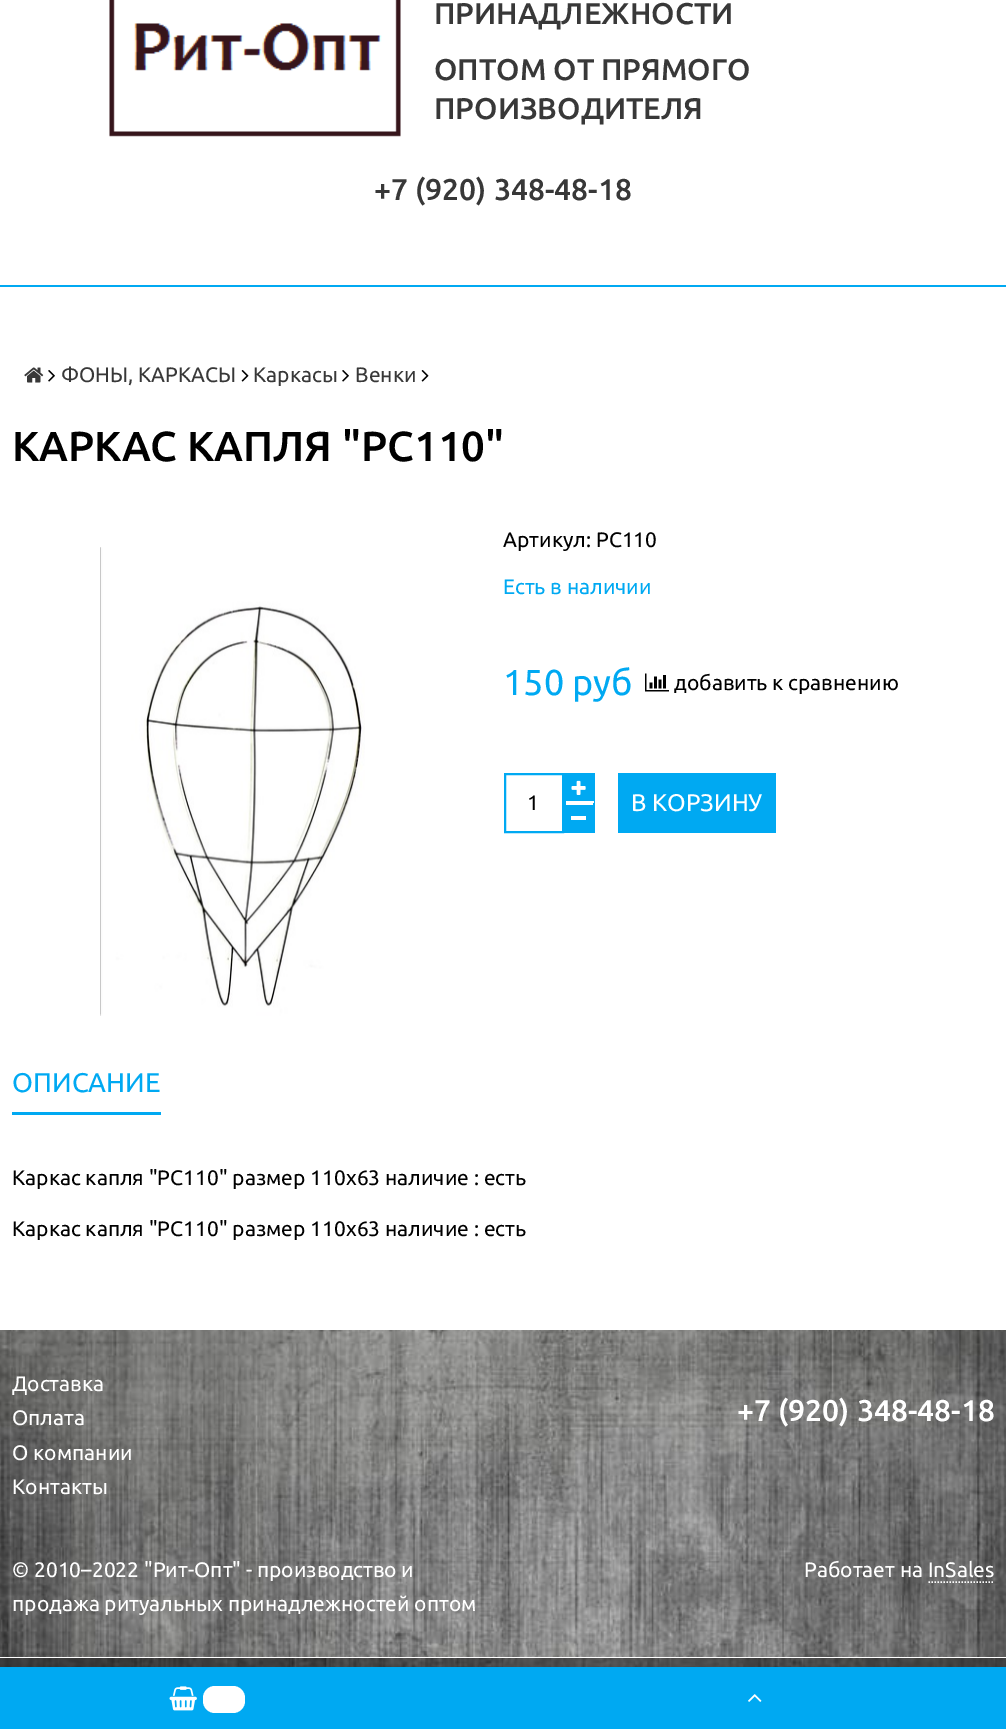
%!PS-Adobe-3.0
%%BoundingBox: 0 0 1006 1729
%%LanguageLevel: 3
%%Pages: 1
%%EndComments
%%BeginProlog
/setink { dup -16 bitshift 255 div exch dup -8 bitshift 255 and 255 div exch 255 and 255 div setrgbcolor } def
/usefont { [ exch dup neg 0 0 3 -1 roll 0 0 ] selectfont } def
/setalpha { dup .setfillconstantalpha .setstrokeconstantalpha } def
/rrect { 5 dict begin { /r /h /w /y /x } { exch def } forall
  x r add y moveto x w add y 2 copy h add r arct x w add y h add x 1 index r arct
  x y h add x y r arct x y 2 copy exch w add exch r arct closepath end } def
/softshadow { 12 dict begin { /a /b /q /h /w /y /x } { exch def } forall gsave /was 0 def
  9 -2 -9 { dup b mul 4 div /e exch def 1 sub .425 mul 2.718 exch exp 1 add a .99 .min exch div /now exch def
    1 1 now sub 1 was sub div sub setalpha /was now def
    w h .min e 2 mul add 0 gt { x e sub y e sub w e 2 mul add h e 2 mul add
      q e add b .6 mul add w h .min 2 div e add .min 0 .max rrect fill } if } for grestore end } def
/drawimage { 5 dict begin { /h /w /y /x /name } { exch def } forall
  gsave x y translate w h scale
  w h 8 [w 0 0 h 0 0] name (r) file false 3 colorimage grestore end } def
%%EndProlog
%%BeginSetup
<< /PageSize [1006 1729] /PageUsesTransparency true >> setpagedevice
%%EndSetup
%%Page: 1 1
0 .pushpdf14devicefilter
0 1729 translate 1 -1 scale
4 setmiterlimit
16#FFFFFF setink
0 0 1006 1729 rectfill
(img1.raw) 0 1658 1006 9 drawimage
(img2.raw) 109 0 292 137 drawimage
/Ubuntu-Medium 30 usefont
16#383838 setink
[
    [(ПРИНАДЛЕЖНОСТИ) 434 24]
    [(ОПТОМ ОТ ПРЯМОГО) 434 80]
    [(ПРОИЗВОДИТЕЛЯ) 434 119]
    [(+7 \(920\) 348-48-18) 374 200]
] { aload pop moveto show } forall
16#00A9F2 setink
0 285 1006 2 rectfill
(img3.raw) 24 367 20 16 drawimage
(img4.raw) 48 370 7 12 drawimage
/Ubuntu-Regular 21 usefont
16#383838 setink
61 382 moveto (ФОНЫ, КАРКАСЫ) show
(img5.raw) 241 370 8 12 drawimage
253 382 moveto (Каркасы) show
(img4.raw) 342 370 7 12 drawimage
355 382 moveto (Венки) show
(img5.raw) 421 370 8 12 drawimage
/Ubuntu-Medium 42 usefont
16#000000 setink
12 461 moveto (КАРКАС КАПЛЯ "РС110") show
(img6.raw) 100 547 265 469 drawimage
/Ubuntu-Regular 21 usefont
503 547 moveto (Артикул: РС110) show
16#00A9F2 setink
503 594 moveto (Есть в наличии) show
/Ubuntu-Regular 36 usefont
503 695 moveto (150 руб) show
(img7.raw) 645 673 24 19 drawimage
/Ubuntu-Regular 21 usefont
16#000000 setink
674 690 moveto (добавить к сравнению) show
[
    [566 805 27 28 16#00A9F2]
    [593 773 2 60 16#00A9F2]
    [564 773 2 60 16#00A9F2]
    [571 816 15 4 16#FFFFFF]
] { aload pop setink rectfill } forall
16#00A9F2 setink
2 setlinewidth
505 774 58 58 rectstroke
16#000000 setink
527 810 moveto (1) show
16#00A9F2 setink
566 773 27 28 rectfill
16#FFFFFF setink
593 801 1 2 rectfill
(img8.raw) 571 780 15 15 drawimage
16#00A9F2 setink
618 773 158 60 rectfill
/Ubuntu-Regular 24 usefont
16#FFFFFF setink
631 811 moveto (В КОРЗИНУ) show
16#00A9F2 setink
12 1112 149 3 rectfill
/Ubuntu-Regular 27 usefont
12 1092 moveto (ОПИСАНИЕ) show
/Ubuntu-Regular 21 usefont
16#000000 setink
12 1185 moveto (Каркас капля "РС110" размер 110х63 наличие : есть) show
12 1236 moveto (Каркас капля "РС110" размер 110х63 наличие : есть) show
(img9.raw) 0 1330 1006 327 drawimage
16#FFFFFF setink
[
    [(Доставка) 12 1391]
    [(Оплата) 12 1425]
    [(О компании) 12 1460]
    [(Контакты) 12 1494]
] { aload pop moveto show } forall
/Ubuntu-Medium 30 usefont
737 1421 moveto (+7 \(920\) 348-48-18) show
/Ubuntu-Regular 21 usefont
[
    [(© 2010–2022 "Рит-Опт" - производство и) 12 1577]
    [(продажа ритуальных принадлежностей оптом) 12 1611]
    [(Работает на InSales) 804 1577]
] { aload pop moveto show } forall
1.5 setlinewidth
[1.5 1.5] 0 setdash
928.5 1582 moveto 994.5 1582 lineto stroke
16#333333 setink
0 1670 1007 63 0 4.5 1 softshadow
16#00A9F2 setink
0 1667 1006 62 rectfill
(img10.raw) 748 1694 14 8 drawimage
(img11.raw) 169 1686 28 25 drawimage
16#FFFFFF setink
203 1686 42 27 12 rrect fill
.poppdf14devicefilter showpage
%%EOF
